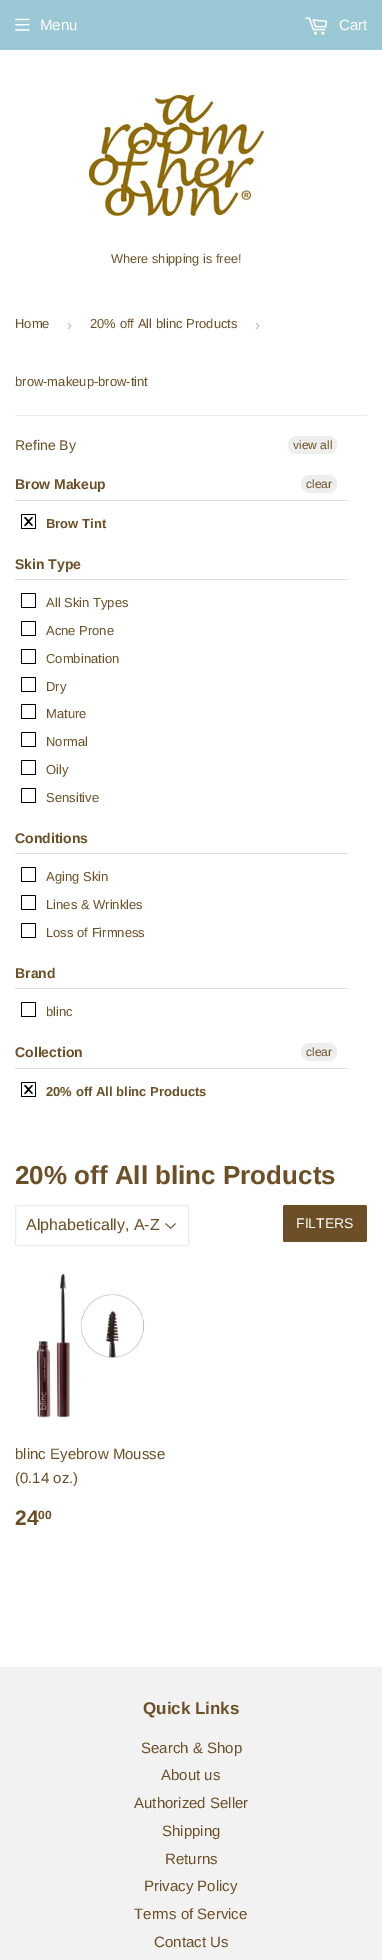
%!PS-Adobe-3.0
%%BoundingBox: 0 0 382 1960
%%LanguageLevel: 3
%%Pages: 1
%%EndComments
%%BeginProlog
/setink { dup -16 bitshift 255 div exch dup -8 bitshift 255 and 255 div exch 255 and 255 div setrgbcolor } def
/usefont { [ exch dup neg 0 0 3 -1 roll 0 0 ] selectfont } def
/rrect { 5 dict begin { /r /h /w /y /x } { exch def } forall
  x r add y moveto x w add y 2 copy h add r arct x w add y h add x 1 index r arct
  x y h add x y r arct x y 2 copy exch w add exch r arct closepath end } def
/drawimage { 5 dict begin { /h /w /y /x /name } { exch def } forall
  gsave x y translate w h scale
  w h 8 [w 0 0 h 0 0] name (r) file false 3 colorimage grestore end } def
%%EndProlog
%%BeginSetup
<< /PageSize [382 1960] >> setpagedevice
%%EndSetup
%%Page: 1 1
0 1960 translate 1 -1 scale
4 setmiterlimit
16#FFFFFF setink
0 0 382 1960 rectfill
16#9AC8D4 setink
0 0 382 50 rectfill
(img1.raw) 15 18 15 13 drawimage
/LiberationSans-Regular 15 usefont
16#FFFFFF setink
40 30 moveto (Menu) show
(img2.raw) 305 17 23 18 drawimage
339 30 moveto (Cart) show
(img3.raw) 89 95 175 121 drawimage
/LiberationSans-Regular 12.75 usefont
16#6C4F26 setink
111 263 moveto (Where shipping is free!) show
16#ECECEC setink
15 415 352 1 rectfill
/LiberationSans-Regular 13 usefont
16#6C4F26 setink
15 328 moveto (Home) show
/LiberationSans-Regular 15 usefont
16#BBBBBB setink
67 330 moveto (›) show
/LiberationSans-Regular 13 usefont
16#6C4F26 setink
90 328 moveto (20% off All blinc Products) show
/LiberationSans-Regular 15 usefont
16#BBBBBB setink
255 330 moveto (›) show
/LiberationSans-Regular 13 usefont
16#6C4F26 setink
15 386 moveto (brow-makeup-brow-tint) show
/LiberationSans-Regular 14 usefont
15 450 moveto (Refine By) show
16#EEEEEE setink
288 436 49 18 9 rrect fill
/LiberationSans-Regular 12 usefont
16#6C4F26 setink
293 449 moveto (view all) show
16#DDDDDD setink
15 500 332 1 rectfill
/LiberationSans-Bold 14 usefont
16#6C4F26 setink
15 489 moveto (Brow Makeup) show
16#EEEEEE setink
301 475 36 18 9 rrect fill
/LiberationSans-Regular 12 usefont
16#6C4F26 setink
306 488 moveto (clear) show
(img4.raw) 21 514 16 15 drawimage
/LiberationSans-Bold 13 usefont
46 528 moveto (Brow Tint) show
16#DDDDDD setink
15 579 332 1 rectfill
/LiberationSans-Bold 14 usefont
16#6C4F26 setink
15 569 moveto (Skin Type) show
(img5.raw) 21 593 16 15 drawimage
/LiberationSans-Regular 13 usefont
46 607 moveto (All Skin Types) show
(img5.raw) 21 621 16 15 drawimage
46 635 moveto (Acne Prone) show
(img5.raw) 21 649 16 15 drawimage
46 663 moveto (Combination) show
(img5.raw) 21 677 16 15 drawimage
46 691 moveto (Dry) show
(img5.raw) 21 704 16 15 drawimage
46 718 moveto (Mature) show
(img5.raw) 21 732 16 15 drawimage
46 746 moveto (Normal) show
(img5.raw) 21 760 16 15 drawimage
46 774 moveto (Oily) show
(img5.raw) 21 788 16 15 drawimage
46 802 moveto (Sensitive) show
16#DDDDDD setink
15 853 332 1 rectfill
/LiberationSans-Bold 14 usefont
16#6C4F26 setink
15 843 moveto (Conditions) show
(img5.raw) 21 867 16 15 drawimage
/LiberationSans-Regular 13 usefont
46 881 moveto (Aging Skin) show
(img5.raw) 21 895 16 15 drawimage
46 909 moveto (Lines & Wrinkles) show
(img5.raw) 21 923 16 15 drawimage
46 937 moveto (Loss of Firmness) show
16#DDDDDD setink
15 988 332 1 rectfill
/LiberationSans-Bold 14 usefont
16#6C4F26 setink
15 978 moveto (Brand) show
(img5.raw) 21 1002 16 15 drawimage
/LiberationSans-Regular 13 usefont
46 1016 moveto (blinc) show
16#DDDDDD setink
15 1068 332 1 rectfill
/LiberationSans-Bold 14 usefont
16#6C4F26 setink
15 1057 moveto (Collection) show
16#EEEEEE setink
301 1043 36 18 9 rrect fill
/LiberationSans-Regular 12 usefont
16#6C4F26 setink
306 1056 moveto (clear) show
(img4.raw) 21 1082 16 15 drawimage
/LiberationSans-Bold 13 usefont
46 1096 moveto (20% off All blinc Products) show
/LiberationSans-Bold 26 usefont
15 1184 moveto (20% off All blinc Products) show
(img6.raw) 165 1223 11 6 drawimage
16#ECECEC setink
15.5 1205.5 173 40 1.5 rrect stroke
/LiberationSans-Regular 16 usefont
16#6C4F26 setink
26 1230 moveto (Alphabetically, A-Z) show
283 1205 84 37 2 rrect fill
/LiberationSans-Regular 14 usefont
16#FFFFFF setink
296 1228 moveto (FILTERS) show
(img7.raw) 36 1273 109 145 drawimage
/LiberationSans-Regular 15 usefont
16#6C4F26 setink
15 1459 moveto (blinc Eyebrow Mousse) show
15 1483 moveto (\(0.14 oz.\)) show
/LiberationSans-Bold 21 usefont
15 1525 moveto (24) show
/LiberationSans-Bold 12 usefont
38 1519 moveto (00) show
16#F2F2F2 setink
0 1667 382 293 rectfill
/LiberationSans-Bold 17 usefont
16#6C4F26 setink
143 1714 moveto (Quick Links) show
/LiberationSans-Regular 15 usefont
[
    [(Search & Shop) 141 1753]
    [(About us) 161 1780]
    [(Authorized Seller) 134 1808]
    [(Shipping) 162 1836]
    [(Returns) 165 1864]
    [(Privacy Policy) 144 1891]
    [(Terms of Service) 134 1919]
    [(Contact Us) 154 1947]
] { aload pop moveto show } forall
showpage
%%EOF
